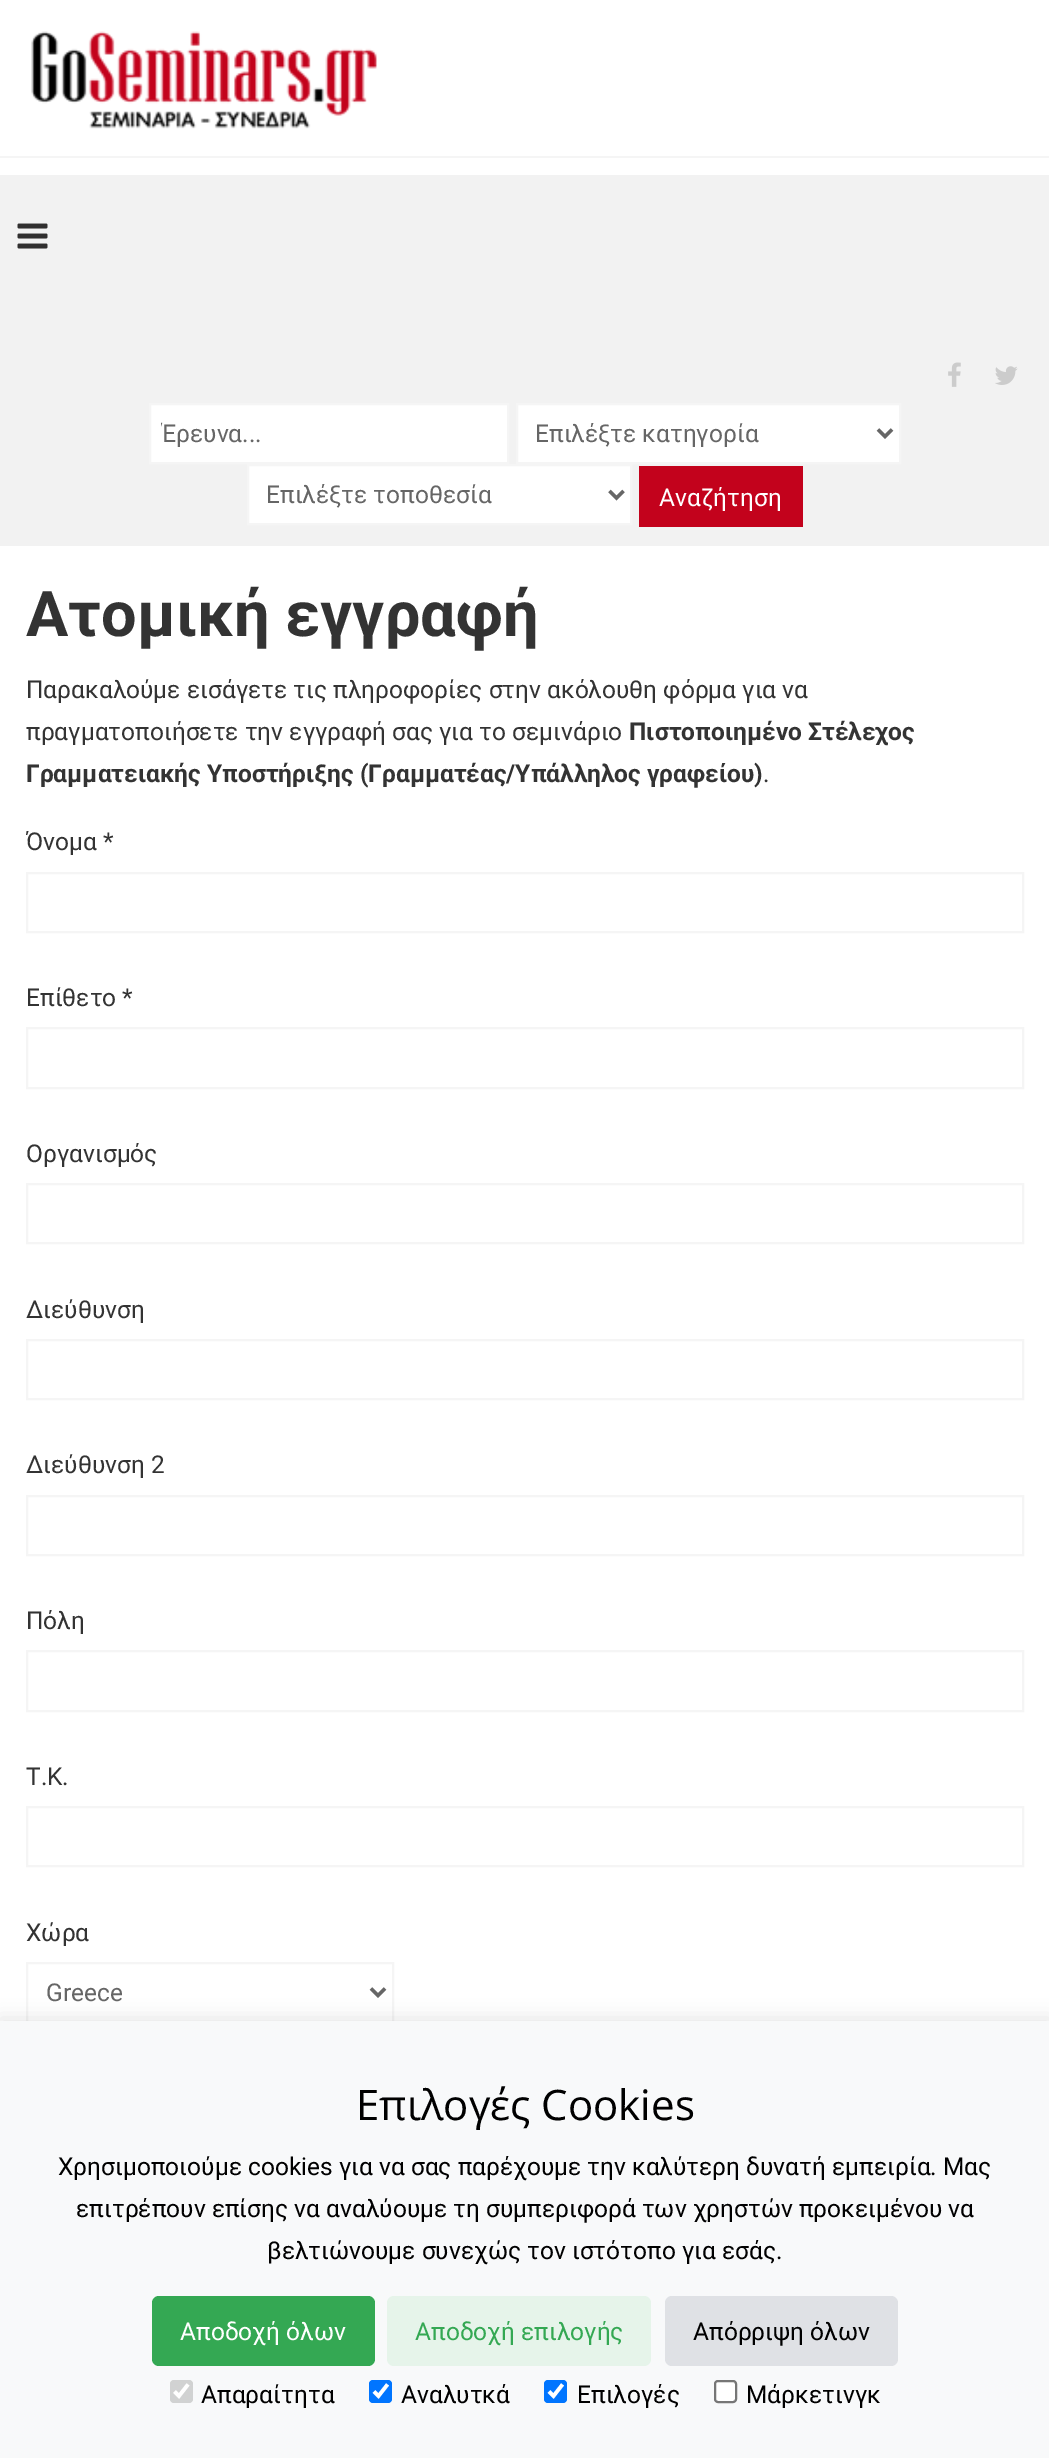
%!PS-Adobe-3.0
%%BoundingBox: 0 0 1049 2458
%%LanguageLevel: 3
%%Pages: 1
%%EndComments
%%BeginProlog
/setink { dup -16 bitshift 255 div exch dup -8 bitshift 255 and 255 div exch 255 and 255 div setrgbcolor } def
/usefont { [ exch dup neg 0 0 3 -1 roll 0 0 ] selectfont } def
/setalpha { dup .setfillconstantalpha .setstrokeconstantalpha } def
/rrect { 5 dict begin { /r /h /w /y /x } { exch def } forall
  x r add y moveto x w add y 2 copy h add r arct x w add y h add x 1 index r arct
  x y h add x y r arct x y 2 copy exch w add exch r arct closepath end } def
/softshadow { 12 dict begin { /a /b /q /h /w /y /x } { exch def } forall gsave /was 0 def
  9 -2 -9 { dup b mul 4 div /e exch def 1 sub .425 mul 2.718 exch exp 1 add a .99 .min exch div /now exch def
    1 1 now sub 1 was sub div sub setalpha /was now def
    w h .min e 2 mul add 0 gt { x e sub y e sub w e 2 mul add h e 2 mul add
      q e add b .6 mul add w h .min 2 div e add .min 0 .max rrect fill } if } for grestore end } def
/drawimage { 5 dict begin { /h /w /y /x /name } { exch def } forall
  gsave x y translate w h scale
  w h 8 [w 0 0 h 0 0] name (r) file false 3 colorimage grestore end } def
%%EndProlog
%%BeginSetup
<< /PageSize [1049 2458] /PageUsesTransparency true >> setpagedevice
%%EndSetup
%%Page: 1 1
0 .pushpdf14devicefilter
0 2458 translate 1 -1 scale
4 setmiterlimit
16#F2F2F2 setink
0 0 1049 2458 rectfill
16#FFFFFF setink
0 0 1049 156 rectfill
16#F5F5F5 setink
0 156 1049 2 rectfill
(img1.raw) 31 31 346 98 drawimage
16#FFFFFF setink
0 158 1049 17 rectfill
(img2.raw) 17 223 31 26 drawimage
(img3.raw) 948 362 13 25 drawimage
(img4.raw) 995 366 23 19 drawimage
150 404 moveto 508 404 lineto 508 463 lineto 150 463 lineto closepath gsave fill grestore
16#F5F5F5 setink
2 setlinewidth
stroke
gsave
161 420 336 28 rectclip
/Roboto-Regular 24.5 usefont
16#666666 setink
161 442 moveto (Έρευνα...) show
grestore
16#FFFFFF setink
517 404 moveto 900 404 lineto 900 463 lineto 517 463 lineto closepath gsave fill grestore
16#F5F5F5 setink
stroke
16#666666 setink
3.5 setlinewidth
878 429.5 moveto 885 436.5 lineto 892 429.5 lineto stroke
/Roboto-Regular 24.5 usefont
535 442 moveto (Επιλέξτε κατηγορία) show
16#FFFFFF setink
248 465 moveto 631 465 lineto 631 524 lineto 248 524 lineto closepath gsave fill grestore
16#F5F5F5 setink
2 setlinewidth
stroke
16#666666 setink
3.5 setlinewidth
609.5 491 moveto 616.5 498 lineto 623.5 491 lineto stroke
266 503 moveto (Επιλέξτε τοποθεσία) show
16#C3021C setink
639 466 164 61 rectfill
16#FFFFFF setink
659 506 moveto (Αναζήτηση) show
0 546 1049 1475 rectfill
/Roboto-Bold 63 usefont
16#333333 setink
26 636 moveto (Ατομική εγγραφή) show
/Roboto-Regular 24.5 usefont
26 698 moveto (Παρακαλούμε εισάγετε τις πληροφορίες στην ακόλουθη φόρμα για να) show
26 740 moveto (πραγματοποιήσετε την εγγραφή σας για το σεμινάριο) show
/Roboto-Bold 24.5 usefont
629 740 moveto (Πιστοποιημένο Στέλεχος) show
26 782 moveto (Γραμματειακής Υποστήριξης \(Γραμματέας/Υπάλληλος γραφείου\)) show
/Roboto-Regular 24.5 usefont
763 782 moveto (.) show
26 850 moveto (Όνομα *) show
16#F5F5F5 setink
2 setlinewidth
27 873 996 59 rectstroke
16#333333 setink
26 1006 moveto (Επίθετο *) show
16#F5F5F5 setink
27 1028 996 60 rectstroke
16#333333 setink
26 1162 moveto (Οργανισμός) show
16#F5F5F5 setink
27 1184 996 59 rectstroke
16#333333 setink
26 1318 moveto (Διεύθυνση) show
16#F5F5F5 setink
27 1340 996 59 rectstroke
16#333333 setink
26 1473 moveto (Διεύθυνση 2) show
16#F5F5F5 setink
27 1496 996 59 rectstroke
16#333333 setink
26 1629 moveto (Πόλη) show
16#F5F5F5 setink
27 1651 996 60 rectstroke
16#333333 setink
26 1785 moveto (Τ.Κ.) show
16#F5F5F5 setink
27 1807 996 59 rectstroke
16#333333 setink
26 1941 moveto (Χώρα) show
16#F5F5F5 setink
27 1963 366 59 rectstroke
16#666666 setink
3.5 setlinewidth
371 1988.5 moveto 378 1995.5 lineto 385 1988.5 lineto stroke
46 2001 moveto (Greece) show
16#000000 setink
0 2018 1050 437 0 9 0.1 softshadow
16#F8F9FA setink
0 2021 1049 437 rectfill
/OpenSans-Regular 42 usefont
16#000000 setink
356 2120 moveto (Επιλογές Cookies) show
/Roboto-Regular 24.5 usefont
[
    [(Χρησιμοποιούμε cookies για να σας παρέχουμε την καλύτερη δυνατή εμπειρία. Μας) 58 2175]
    [(επιτρέπουν επίσης να αναλύουμε τη συμπεριφορά των χρηστών προκειμένου να) 76 2217]
    [(βελτιώνουμε συνεχώς τον ιστότοπο για εσάς.) 267 2259]
] { aload pop moveto show } forall
16#34A853 setink
152 2296 223 70 7 rrect fill
16#FFFFFF setink
180 2340 moveto (Αποδοχή όλων) show
16#E6F4EA setink
387 2296 264 70 7 rrect fill
16#34A853 setink
415 2340 moveto (Αποδοχή επιλογής) show
16#DFE1E5 setink
665 2296 233 70 7 rrect fill
16#000000 setink
693 2340 moveto (Απόρριψη όλων) show
16#D1D2D2 setink
170 2380 23 23 4 rrect fill
16#FFFFFF setink
3.6 setlinewidth
174.5 2391.5 moveto 179 2396 lineto 188 2384.5 lineto stroke
16#000000 setink
201 2403 moveto (Απαραίτητα) show
16#0075FF setink
369 2380 23 23 4 rrect fill
16#FFFFFF setink
374 2391.5 moveto 378.5 2396 lineto 387.5 2384.5 lineto stroke
16#000000 setink
401 2403 moveto (Αναλυτκά) show
16#0075FF setink
544 2380 23 23 4 rrect fill
16#FFFFFF setink
549 2391.5 moveto 553.5 2396 lineto 562.5 2384.5 lineto stroke
16#000000 setink
577 2403 moveto (Επιλογές) show
16#FFFFFF setink
715 2381 21 21 3 rrect gsave fill grestore
16#767676 setink
2 setlinewidth
stroke
16#000000 setink
746 2403 moveto (Μάρκετινγκ) show
.poppdf14devicefilter showpage
%%EOF
